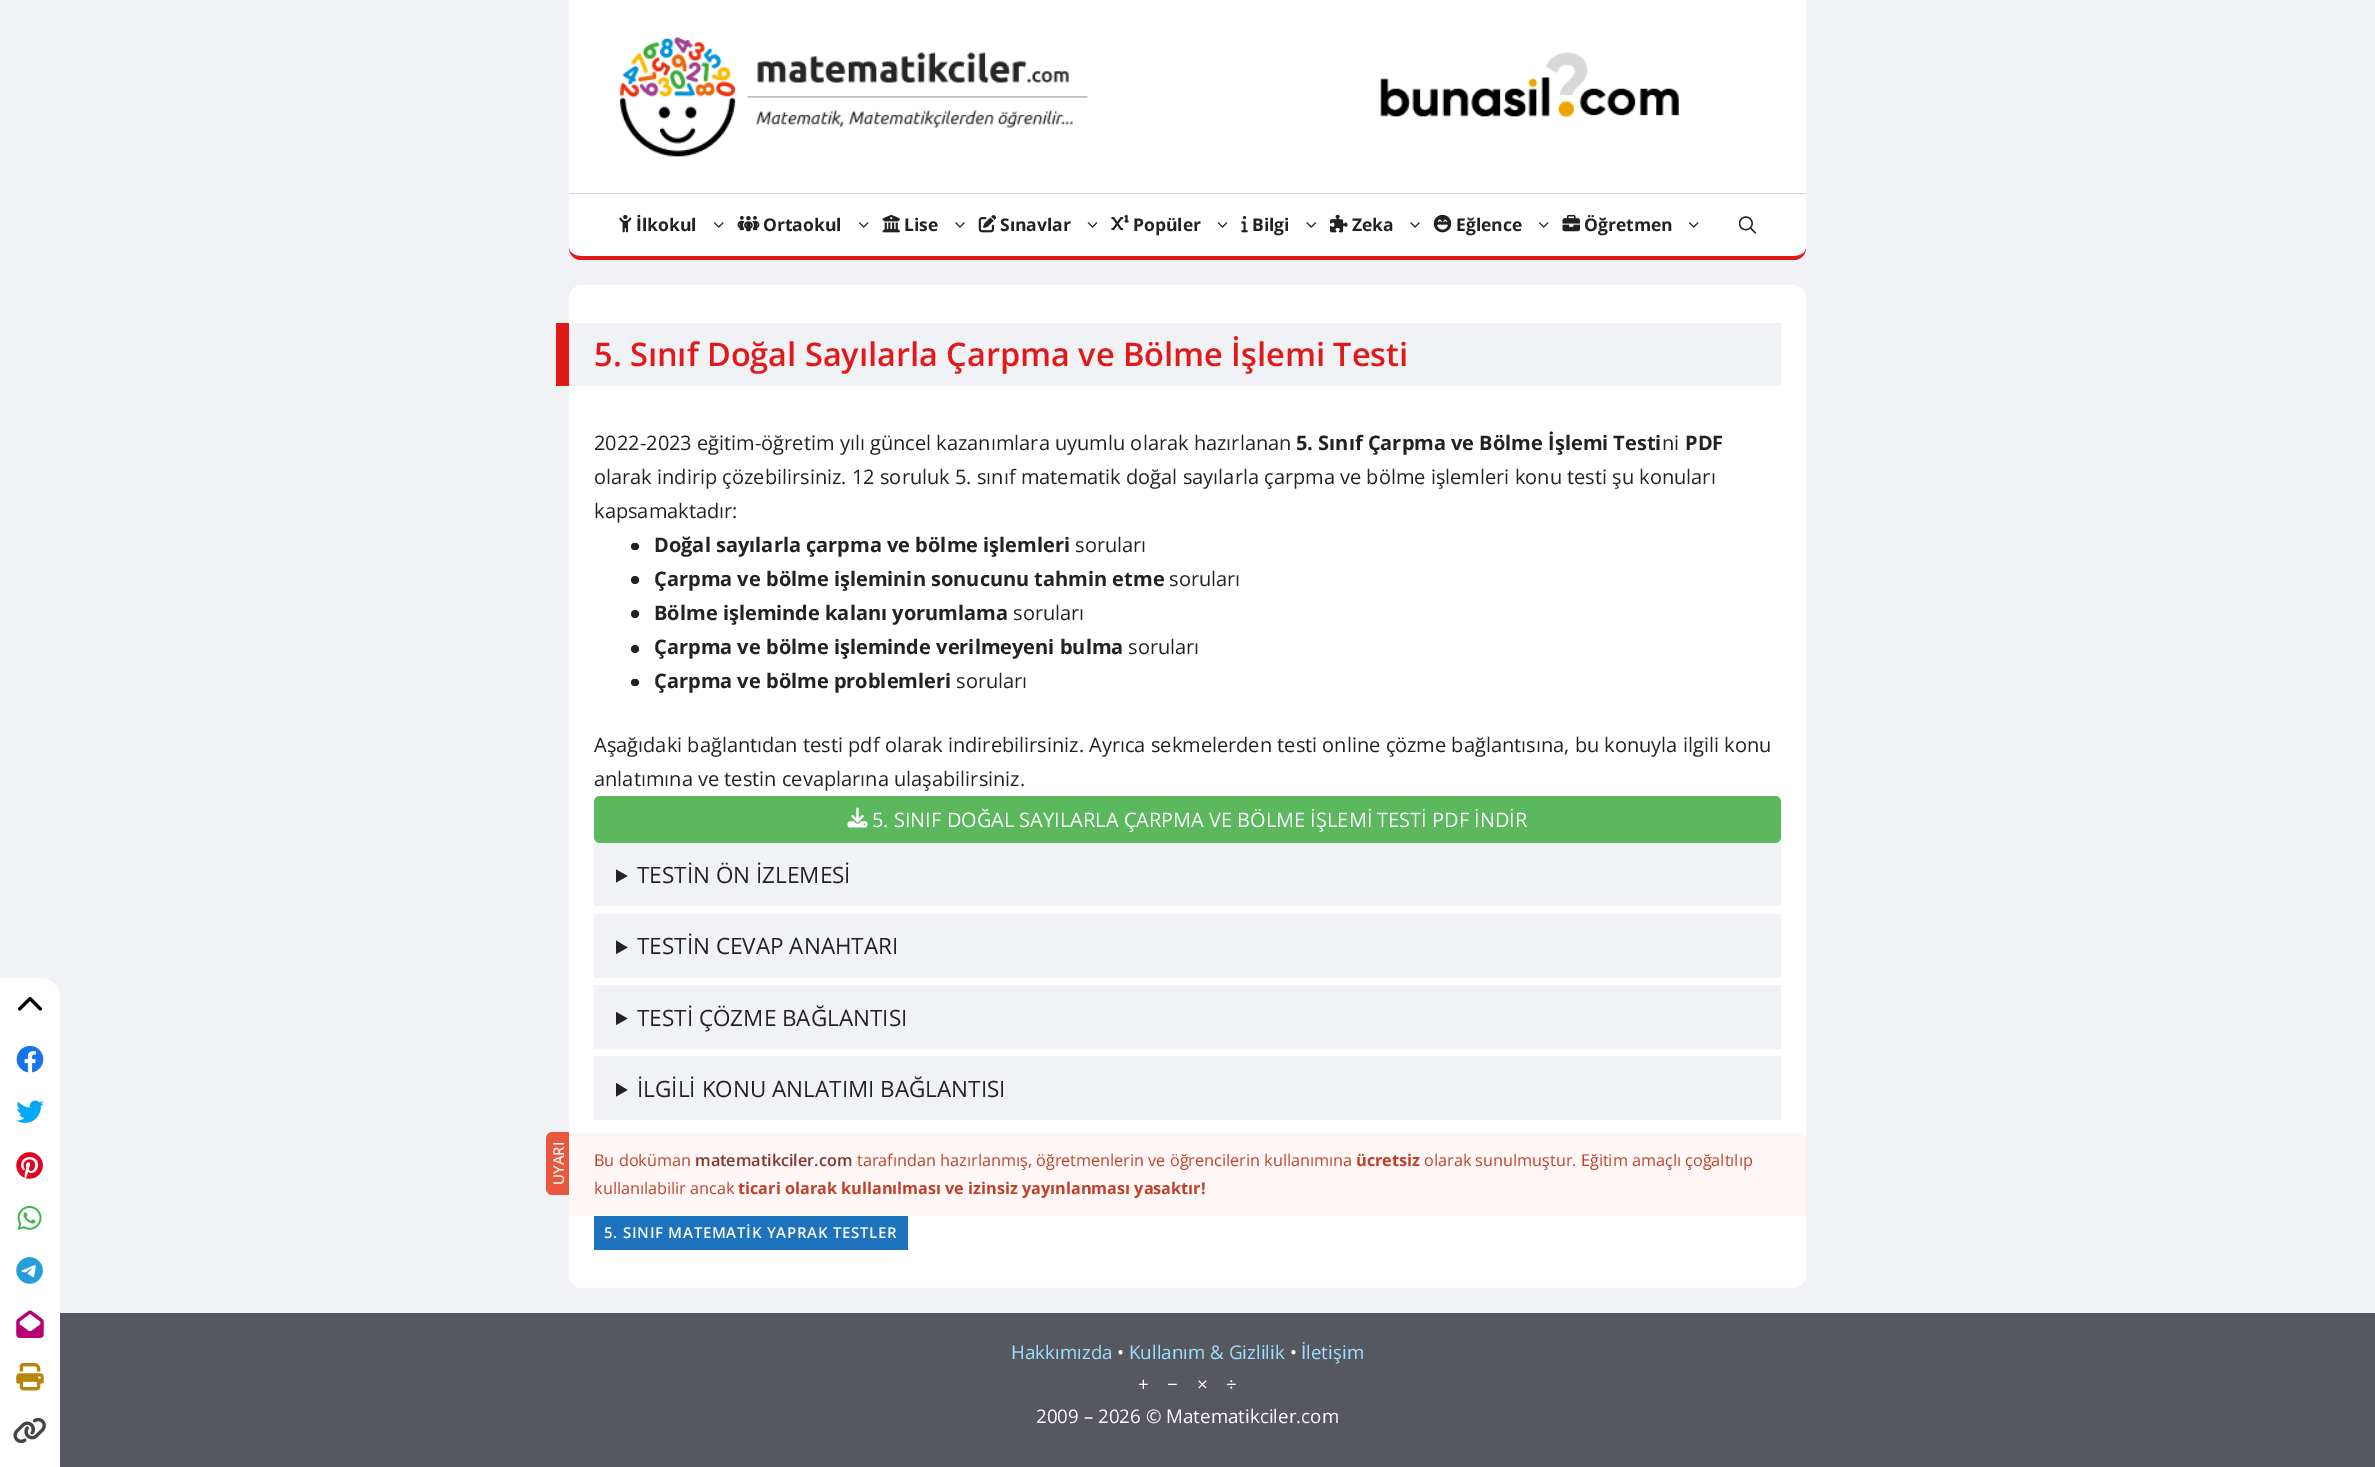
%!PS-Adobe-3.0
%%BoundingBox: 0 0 2375 1467
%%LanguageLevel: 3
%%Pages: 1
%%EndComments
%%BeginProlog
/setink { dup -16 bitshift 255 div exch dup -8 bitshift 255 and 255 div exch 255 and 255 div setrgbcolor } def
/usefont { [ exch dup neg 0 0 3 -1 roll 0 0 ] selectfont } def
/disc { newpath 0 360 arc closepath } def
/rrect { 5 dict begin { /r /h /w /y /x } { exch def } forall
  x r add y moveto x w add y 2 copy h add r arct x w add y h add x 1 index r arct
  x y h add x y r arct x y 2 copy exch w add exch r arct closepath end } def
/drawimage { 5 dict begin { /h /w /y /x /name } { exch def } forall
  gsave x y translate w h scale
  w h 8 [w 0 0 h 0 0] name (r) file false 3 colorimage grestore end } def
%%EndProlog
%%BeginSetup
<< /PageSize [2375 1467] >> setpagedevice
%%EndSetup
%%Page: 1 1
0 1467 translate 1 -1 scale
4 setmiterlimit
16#F0F2F6 setink
0 0 2375 1467 rectfill
16#FFFFFF setink
569 0 1237 193 rectfill
(img1.raw) 619 37 469 120 drawimage
(img2.raw) 1380 52 299 66 drawimage
569 193 moveto 1806 193 lineto 1806 247 lineto 1806 254 1800 260 1793 260 curveto 582 260 lineto 575 260 569 254 569 247 curveto closepath fill
16#D3D3D3 setink
569 193 1237 1 rectfill
16#E21919 setink
1794 260 moveto 1801 260 1806 254 1806 248 curveto 1806 252 1801 256 1794 256 curveto 581 256 lineto 574 256 569 252 569 248 curveto 569 254 574 260 581 260 curveto closepath fill
(img3.raw) 619 214 13 19 drawimage
/OpenSans-Bold 17.5 usefont
16#222222 setink
636 231 moveto (İlkokul) show
(img4.raw) 714 222 10 6 drawimage
(img5.raw) 737 216 23 16 drawimage
763 231 moveto (Ortaokul) show
(img4.raw) 859 222 10 6 drawimage
(img6.raw) 882 214 18 19 drawimage
904 231 moveto (Lise) show
(img7.raw) 955 222 10 6 drawimage
(img8.raw) 978 215 18 18 drawimage
1000 231 moveto (Sınavlar) show
(img9.raw) 1087 222 11 6 drawimage
(img10.raw) 1111 214 18 17 drawimage
1133 231 moveto (Popüler) show
(img9.raw) 1217 222 11 6 drawimage
(img11.raw) 1241 216 7 17 drawimage
1252 231 moveto (Bilgi) show
(img12.raw) 1306 222 10 6 drawimage
(img13.raw) 1330 214 18 19 drawimage
1352 231 moveto (Zeka) show
(img7.raw) 1410 222 10 6 drawimage
(img14.raw) 1433 214 19 19 drawimage
1456 231 moveto (Eğlence) show
(img4.raw) 1539 222 10 6 drawimage
(img15.raw) 1562 214 18 18 drawimage
1584 231 moveto (Öğretmen) show
(img4.raw) 1689 222 10 6 drawimage
(img16.raw) 1739 216 17 18 drawimage
16#FFFFFF setink
0 978 moveto 41 978 lineto 51.5 978 60 986.5 60 997 curveto 60 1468 lineto 0 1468 lineto closepath fill
(img17.raw) 18 996 24 15 drawimage
(img18.raw) 16 1045 28 28 drawimage
(img19.raw) 16 1100 28 23 drawimage
(img20.raw) 16 1152 27 27 drawimage
(img21.raw) 17 1205 25 25 drawimage
(img22.raw) 16 1257 27 27 drawimage
(img23.raw) 16 1310 28 28 drawimage
(img24.raw) 16 1363 28 28 drawimage
(img25.raw) 13 1417 33 27 drawimage
569 285 1237 1003 13 rrect fill
16#F0F2F6 setink
569 323 1212 63 rectfill
16#E21919 setink
556 323 13 63 rectfill
/OpenSans-SemiBold 32.5 usefont
594 366 moveto (5. Sınıf Doğal Sayılarla Çarpma ve Bölme İşlemi Testi) show
/OpenSans-Regular 20 usefont
16#222222 setink
594 450 moveto (2022-2023 eğitim-öğretim yılı güncel kazanımlara uyumlu olarak hazırlanan) show
/OpenSans-Bold 20 usefont
1296 450 moveto (5. Sınıf Çarpma ve Bölme İşlemi Testi) show
/OpenSans-Regular 20 usefont
1662 450 moveto (ni) show
/OpenSans-Bold 20 usefont
1685 450 moveto (PDF) show
/OpenSans-Regular 20 usefont
594 484 moveto (olarak indirip çözebilirsiniz. 12 soruluk 5. sınıf matematik doğal sayılarla çarpma ve bölme işlemleri konu testi şu konuları) show
594 518 moveto (kapsamaktadır:) show
631 543 8 7 3.5 rrect fill
/OpenSans-Bold 20 usefont
654 552 moveto (Doğal sayılarla çarpma ve bölme işlemleri) show
/OpenSans-Regular 20 usefont
1075 552 moveto (soruları) show
635 580 4 disc fill
/OpenSans-Bold 20 usefont
654 586 moveto (Çarpma ve bölme işleminin sonucunu tahmin etme) show
/OpenSans-Regular 20 usefont
1169 586 moveto (soruları) show
635 614 4 disc fill
/OpenSans-Bold 20 usefont
654 620 moveto (Bölme işleminde kalanı yorumlama) show
/OpenSans-Regular 20 usefont
1013 620 moveto (soruları) show
635 649 4 disc fill
/OpenSans-Bold 20 usefont
654 654 moveto (Çarpma ve bölme işleminde verilmeyeni bulma) show
/OpenSans-Regular 20 usefont
1128 654 moveto (soruları) show
631 679 8 7 3.5 rrect fill
/OpenSans-Bold 20 usefont
654 688 moveto (Çarpma ve bölme problemleri) show
/OpenSans-Regular 20 usefont
[
    [(soruları) 956 688]
    [(Aşağıdaki bağlantıdan testi pdf olarak indirebilirsiniz. Ayrıca sekmelerden testi online çözme bağlantısına, bu konuyla ilgili konu) 594 752]
    [(anlatımına ve testin cevaplarına ulaşabilirsiniz.) 594 786]
] { aload pop moveto show } forall
16#5CB85C setink
594 796 1187 47 6 rrect fill
(img26.raw) 847 807 21 21 drawimage
16#FFFFFF setink
872 827 moveto (5. SINIF DOĞAL SAYILARLA ÇARPMA VE BÖLME İŞLEMİ TESTİ PDF İNDİR) show
16#F1F2F6 setink
594 843 1187 63 rectfill
16#222222 setink
616 869.5 moveto 627.5 876 lineto 616 882.5 lineto closepath fill
/OpenSans-Regular 22.5 usefont
637 883 moveto (TESTİN ÖN İZLEMESİ) show
16#F1F2F6 setink
594 914 1187 64 rectfill
16#222222 setink
616 940.5 moveto 627.5 947.5 lineto 616 954 lineto closepath fill
637 954 moveto (TESTİN CEVAP ANAHTARI) show
16#F1F2F6 setink
594 985 1187 64 rectfill
16#222222 setink
616 1012 moveto 627.5 1018.5 lineto 616 1025 lineto closepath fill
637 1026 moveto (TESTİ ÇÖZME BAĞLANTISI) show
16#F1F2F6 setink
594 1056 1187 64 rectfill
16#222222 setink
616 1083 moveto 627.5 1090 lineto 616 1096.5 lineto closepath fill
637 1097 moveto (İLGİLİ KONU ANLATIMI BAĞLANTISI) show
16#FEF7F6 setink
569 1133 1237 83 rectfill
16#E9573F setink
546 1189 moveto 546 1139 lineto 546 1135 549 1132 552 1132 curveto 569 1132 lineto 569 1195 lineto 552 1195 lineto 549 1195 546 1192 546 1189 curveto closepath fill
/OpenSans-Medium 15 usefont
16#FFFFFF setink
gsave 564 1185 translate -90 rotate 0 0 moveto (UYARI) show grestore
/OpenSans-Regular 16.25 usefont
16#C14029 setink
594 1166 moveto (Bu doküman) show
/OpenSans-SemiBold 16.25 usefont
16#843534 setink
695 1166 moveto (matematikciler.com) show
/OpenSans-Regular 16.25 usefont
16#C14029 setink
857 1166 moveto (tarafından hazırlanmış, öğretmenlerin ve öğrencilerin kullanımına) show
/OpenSans-Bold 16.25 usefont
1356 1166 moveto (ücretsiz) show
/OpenSans-Regular 16.25 usefont
1424 1166 moveto (olarak sunulmuştur. Eğitim amaçlı çoğaltılıp) show
594 1194 moveto (kullanılabilir ancak) show
/OpenSans-Bold 16.25 usefont
738 1194 moveto (ticari olarak kullanılması ve izinsiz yayınlanması yasaktır!) show
16#1E73BE setink
594 1216 314 34 rectfill
/OpenSans-SemiBold 15 usefont
16#FFFFFF setink
604 1238 moveto 0.75 0 (5. SINIF MATEMATİK YAPRAK TESTLER) ashow
16#575760 setink
60 1313 2315 154 rectfill
/OpenSans-Regular 18.75 usefont
16#9CDEFF setink
1011 1359 moveto (Hakkımızda) show
16#FFFFFF setink
1117 1359 moveto (•) show
16#9CDEFF setink
1129 1359 moveto (Kullanım & Gizlilik) show
16#FFFFFF setink
1290 1359 moveto (•) show
16#9CDEFF setink
1301 1359 moveto (İletişim) show
16#FFFFFF setink
1138 1391 moveto (+  −  ×  ÷) show
1036 1423 moveto (2009 – 2026 © Matematikciler.com) show
showpage
%%EOF
